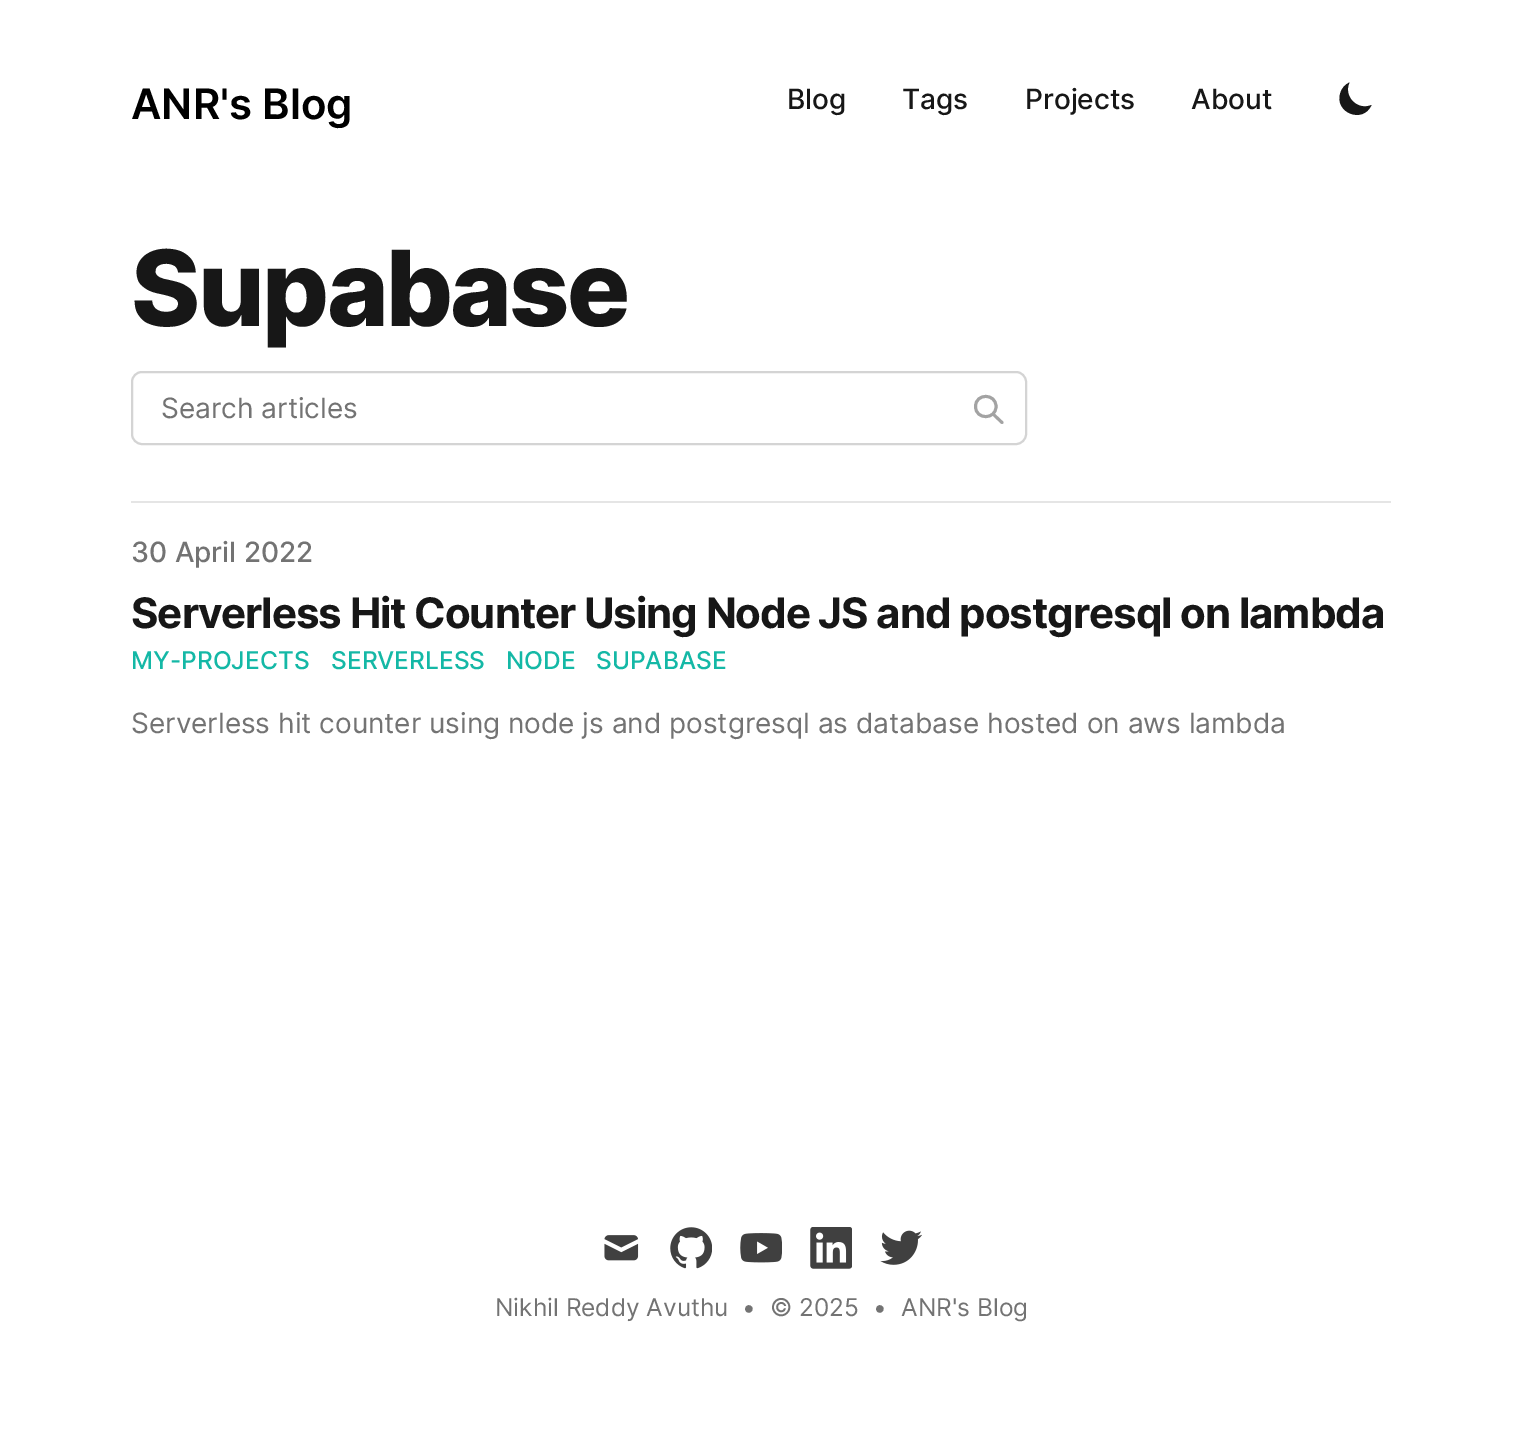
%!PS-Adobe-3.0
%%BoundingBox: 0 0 1522 1450
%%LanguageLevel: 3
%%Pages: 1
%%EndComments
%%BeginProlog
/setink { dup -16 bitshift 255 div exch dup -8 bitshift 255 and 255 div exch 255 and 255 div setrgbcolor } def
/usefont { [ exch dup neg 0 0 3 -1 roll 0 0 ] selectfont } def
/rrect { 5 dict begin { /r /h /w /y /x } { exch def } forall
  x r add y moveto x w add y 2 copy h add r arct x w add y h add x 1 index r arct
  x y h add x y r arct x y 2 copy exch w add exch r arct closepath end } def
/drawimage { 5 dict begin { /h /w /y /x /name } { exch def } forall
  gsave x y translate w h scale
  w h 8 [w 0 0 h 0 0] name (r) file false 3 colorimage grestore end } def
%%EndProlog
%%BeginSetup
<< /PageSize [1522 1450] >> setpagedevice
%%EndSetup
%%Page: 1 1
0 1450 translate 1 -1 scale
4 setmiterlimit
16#FFFFFF setink
0 0 1522 1450 rectfill
/Inter-SemiBoldItalic 42 usefont
16#000000 setink
131 119 moveto (ANR's Blog) show
/Inter-MediumItalic 28 usefont
16#171717 setink
[
    [(Blog) 787 109]
    [(Tags) 902 109]
    [(Projects) 1025 109]
    [(About) 1191 109]
] { aload pop moveto show } forall
1371.5 105 moveto 1357.5 111 1343 96.5 1349.5 82.5 curveto 1345 84.5 1342 88 1340.5 92.5 curveto 1333.5 112.5 1363 124.5 1371.5 105 curveto closepath fill
/Inter-ExtraBoldItalic 105 usefont
131 326 moveto -2.5 0 (Supabase) ashow
16#D4D4D4 setink
2 setlinewidth
132 372 894 72 10 rrect stroke
/Inter-Italic 28 usefont
16#737373 setink
161 418 moveto (Search articles) show
16#A3A3A3 setink
2.9 setlinewidth
1 setlinecap
1 setlinejoin
1002 422.5 moveto 993 414 lineto 996 406.5 moveto 996 420 975.5 420 975.5 406.5 curveto 975.5 393 996 393 996 406.5 curveto closepath stroke
16#E5E5E5 setink
131 501 1260 2 rectfill
/Inter-MediumItalic 28 usefont
16#737373 setink
131 562 moveto (30 April 2022) show
/Inter-BoldItalic 42 usefont
16#171717 setink
131 628 moveto -1.05 0 (Serverless Hit Counter Using Node JS and postgresql on lambda) ashow
/Inter-MediumItalic 24.5 usefont
16#14B8A6 setink
[
    [(MY-PROJECTS) 131 669]
    [(SERVERLESS) 331 669]
    [(NODE) 506 669]
    [(SUPABASE) 596 669]
] { aload pop moveto show } forall
/Inter-Italic 28 usefont
16#737373 setink
131 733 moveto (Serverless hit counter using node js and postgresql as database hosted on aws lambda) show
(img1.raw) 604 1235 35 26 drawimage
(img2.raw) 670 1227 42 42 drawimage
(img3.raw) 740 1233 42 30 drawimage
(img4.raw) 810 1227 42 42 drawimage
(img5.raw) 880 1230 42 35 drawimage
/Inter-Italic 24.5 usefont
[
    [(Nikhil Reddy Avuthu) 495 1316]
    [(•) 742 1316]
    [(© 2025) 770 1316]
    [(•) 873 1316]
    [(ANR's Blog) 901 1316]
] { aload pop moveto show } forall
showpage
%%EOF
